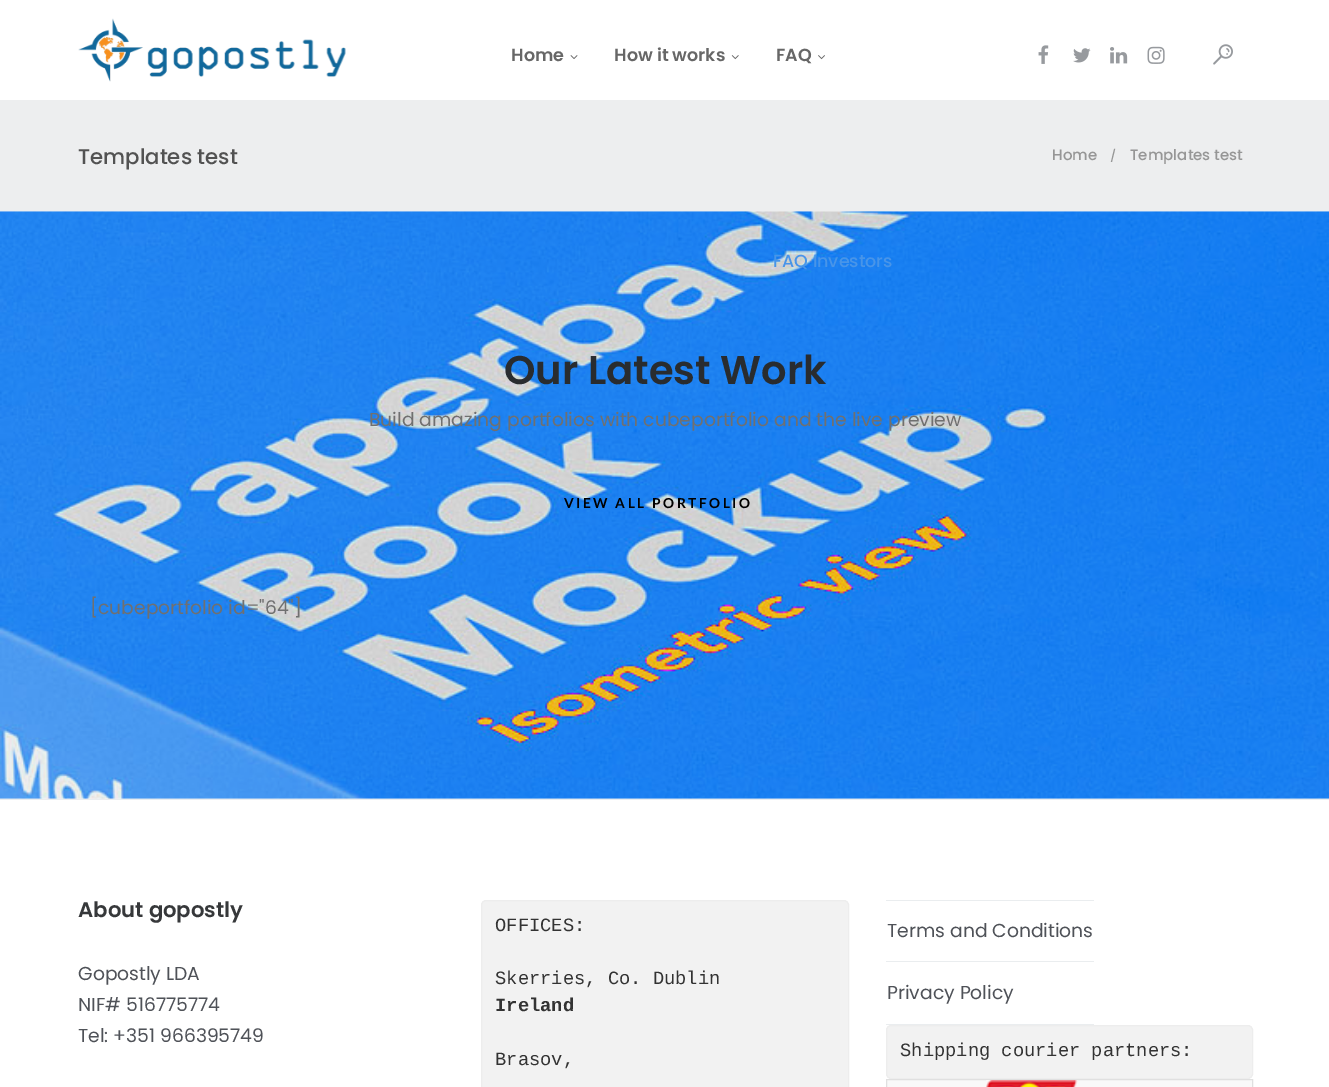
%!PS-Adobe-3.0
%%BoundingBox: 0 0 1329 1087
%%LanguageLevel: 3
%%Pages: 1
%%EndComments
%%BeginProlog
/setink { dup -16 bitshift 255 div exch dup -8 bitshift 255 and 255 div exch 255 and 255 div setrgbcolor } def
/usefont { [ exch dup neg 0 0 3 -1 roll 0 0 ] selectfont } def
/rrect { 5 dict begin { /r /h /w /y /x } { exch def } forall
  x r add y moveto x w add y 2 copy h add r arct x w add y h add x 1 index r arct
  x y h add x y r arct x y 2 copy exch w add exch r arct closepath end } def
/drawimage { 5 dict begin { /h /w /y /x /name } { exch def } forall
  gsave x y translate w h scale
  w h 8 [w 0 0 h 0 0] name (r) file false 3 colorimage grestore end } def
%%EndProlog
%%BeginSetup
<< /PageSize [1329 1087] >> setpagedevice
%%EndSetup
%%Page: 1 1
0 1087 translate 1 -1 scale
4 setmiterlimit
16#FFFFFF setink
0 0 1329 1087 rectfill
16#F2F2F2 setink
0 211 1329 588 rectfill
(img1.raw) 78 18 268 64 drawimage
/Poppins-SemiBold 17.5 usefont
16#676767 setink
511 61 moveto (Home) show
(img2.raw) 570 55 8 4 drawimage
614 61 moveto (How it works) show
(img3.raw) 731 55 8 5 drawimage
776 61 moveto (FAQ) show
(img4.raw) 818 55 7 5 drawimage
(img10.raw) 0 211 1329 588 drawimage
/Poppins-Medium 17.5 usefont
16#4895E9 setink
773 267 moveto (FAQ Investors) show
(img5.raw) 1038 45 11 19 drawimage
(img6.raw) 1073 48 18 15 drawimage
(img7.raw) 1110 47 18 17 drawimage
(img8.raw) 1147 46 18 18 drawimage
(img9.raw) 1213 44 20 21 drawimage
16#EDEEEF setink
0 100 1329 111 rectfill
/Poppins-Medium 21.25 usefont
16#525252 setink
78 164 moveto (Templates test) show
/Poppins-Medium 15 usefont
16#969696 setink
1052 160 moveto (Home) show
/Poppins-Medium 12 usefont
1110 160 moveto (/) show
/Poppins-Medium 15 usefont
1130 160 moveto (Templates test) show
/Poppins-SemiBold 40 usefont
16#292C2F setink
504 384 moveto (Our Latest Work) show
/Poppins-Regular 18.75 usefont
16#707070 setink
369 426 moveto (Build amazing portfolios with cubeportfolio and the live preview) show
/Lato-Bold 13.75 usefont
16#000000 setink
564 508 moveto 2.5 0 (VIEW ALL PORTFOLIO) ashow
/Poppins-Regular 18.75 usefont
16#707070 setink
90 614 moveto ([cubeportfolio id="64"]) show
16#EAEDEF setink
0 799 1329 1 rectfill
/Poppins-SemiBold 21.25 usefont
16#36383A setink
78 917 moveto (About gopostly) show
/Poppins-Regular 18.75 usefont
16#4F5258 setink
[
    [(Gopostly LDA) 78 980]
    [(NIF# 516775774) 78 1011]
    [(Tel: +351 966395749) 78 1042]
] { aload pop moveto show } forall
16#F2F2F2 setink
481.5 900.5 367 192 4.5 rrect gsave fill grestore
16#EDEDED setink
stroke
/LiberationMono-Regular 18.75 usefont
16#333333 setink
495 931 moveto (OFFICES:) show
495 984 moveto (Skerries, Co. Dublin) show
/LiberationMono-Bold 18.75 usefont
495 1011 moveto (Ireland) show
/LiberationMono-Regular 18.75 usefont
495 1065 moveto (Brasov,) show
16#EAEDEF setink
886 900 208 1 rectfill
886 961 208 1 rectfill
/Poppins-Regular 18.75 usefont
16#4F5258 setink
887 937 moveto (Terms and Conditions) show
16#EAEDEF setink
886 1024 208 1 rectfill
16#4F5258 setink
887 999 moveto (Privacy Policy) show
16#F2F2F2 setink
886.5 1025.5 366 53 4.5 rrect gsave fill grestore
16#EDEDED setink
stroke
/LiberationMono-Regular 18.75 usefont
16#333333 setink
900 1056 moveto (Shipping courier partners:) show
16#F9F9F9 setink
886.5 1079.5 moveto 1252.5 1079.5 lineto 1252.5 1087.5 lineto 886.5 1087.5 lineto closepath gsave fill grestore
16#E0E0E0 setink
stroke
(img11.raw) 986 1080 92 7 drawimage
showpage
%%EOF
